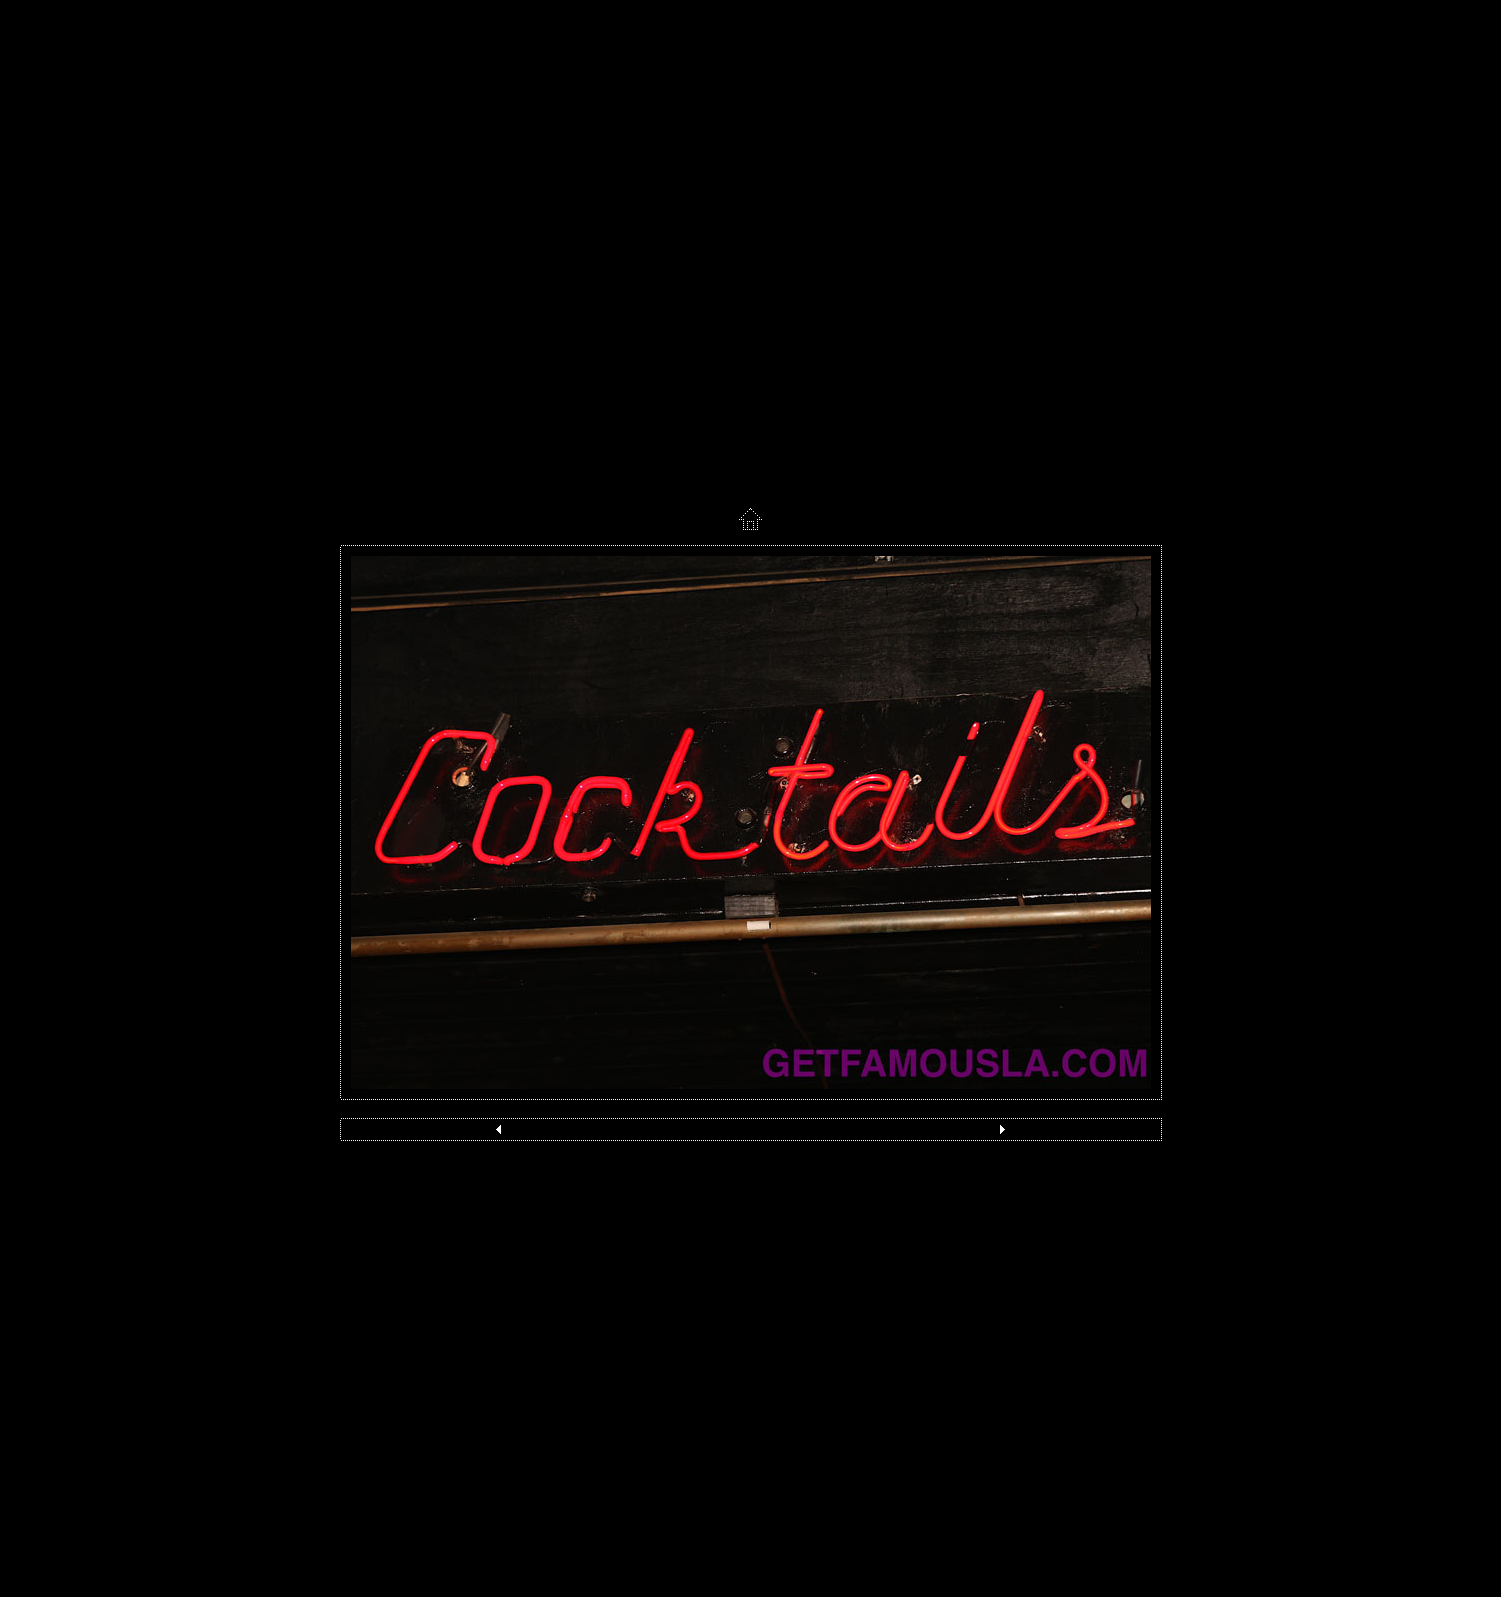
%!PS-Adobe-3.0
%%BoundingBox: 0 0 1501 1597
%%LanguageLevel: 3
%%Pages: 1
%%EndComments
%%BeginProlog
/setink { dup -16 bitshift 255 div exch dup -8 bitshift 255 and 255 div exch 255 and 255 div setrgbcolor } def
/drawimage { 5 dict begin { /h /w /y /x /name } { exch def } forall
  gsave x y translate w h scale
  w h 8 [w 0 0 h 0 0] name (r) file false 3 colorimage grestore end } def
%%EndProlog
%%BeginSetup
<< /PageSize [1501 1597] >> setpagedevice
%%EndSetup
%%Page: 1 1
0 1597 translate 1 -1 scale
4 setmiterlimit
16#000000 setink
0 0 1501 1597 rectfill
(img1.raw) 739 508 23 22 drawimage
(img2.raw) 341 545 821 1 drawimage
(img3.raw) 340 547 1 551 drawimage
(img4.raw) 351 556 800 533 drawimage
(img3.raw) 1161 547 1 551 drawimage
(img2.raw) 341 1099 821 1 drawimage
(img2.raw) 341 1118 821 1 drawimage
(img5.raw) 340 1120 1 19 drawimage
(img6.raw) 496 1125 5 9 drawimage
(img7.raw) 1000 1125 5 9 drawimage
(img5.raw) 1161 1120 1 19 drawimage
(img2.raw) 341 1140 821 1 drawimage
showpage
%%EOF
